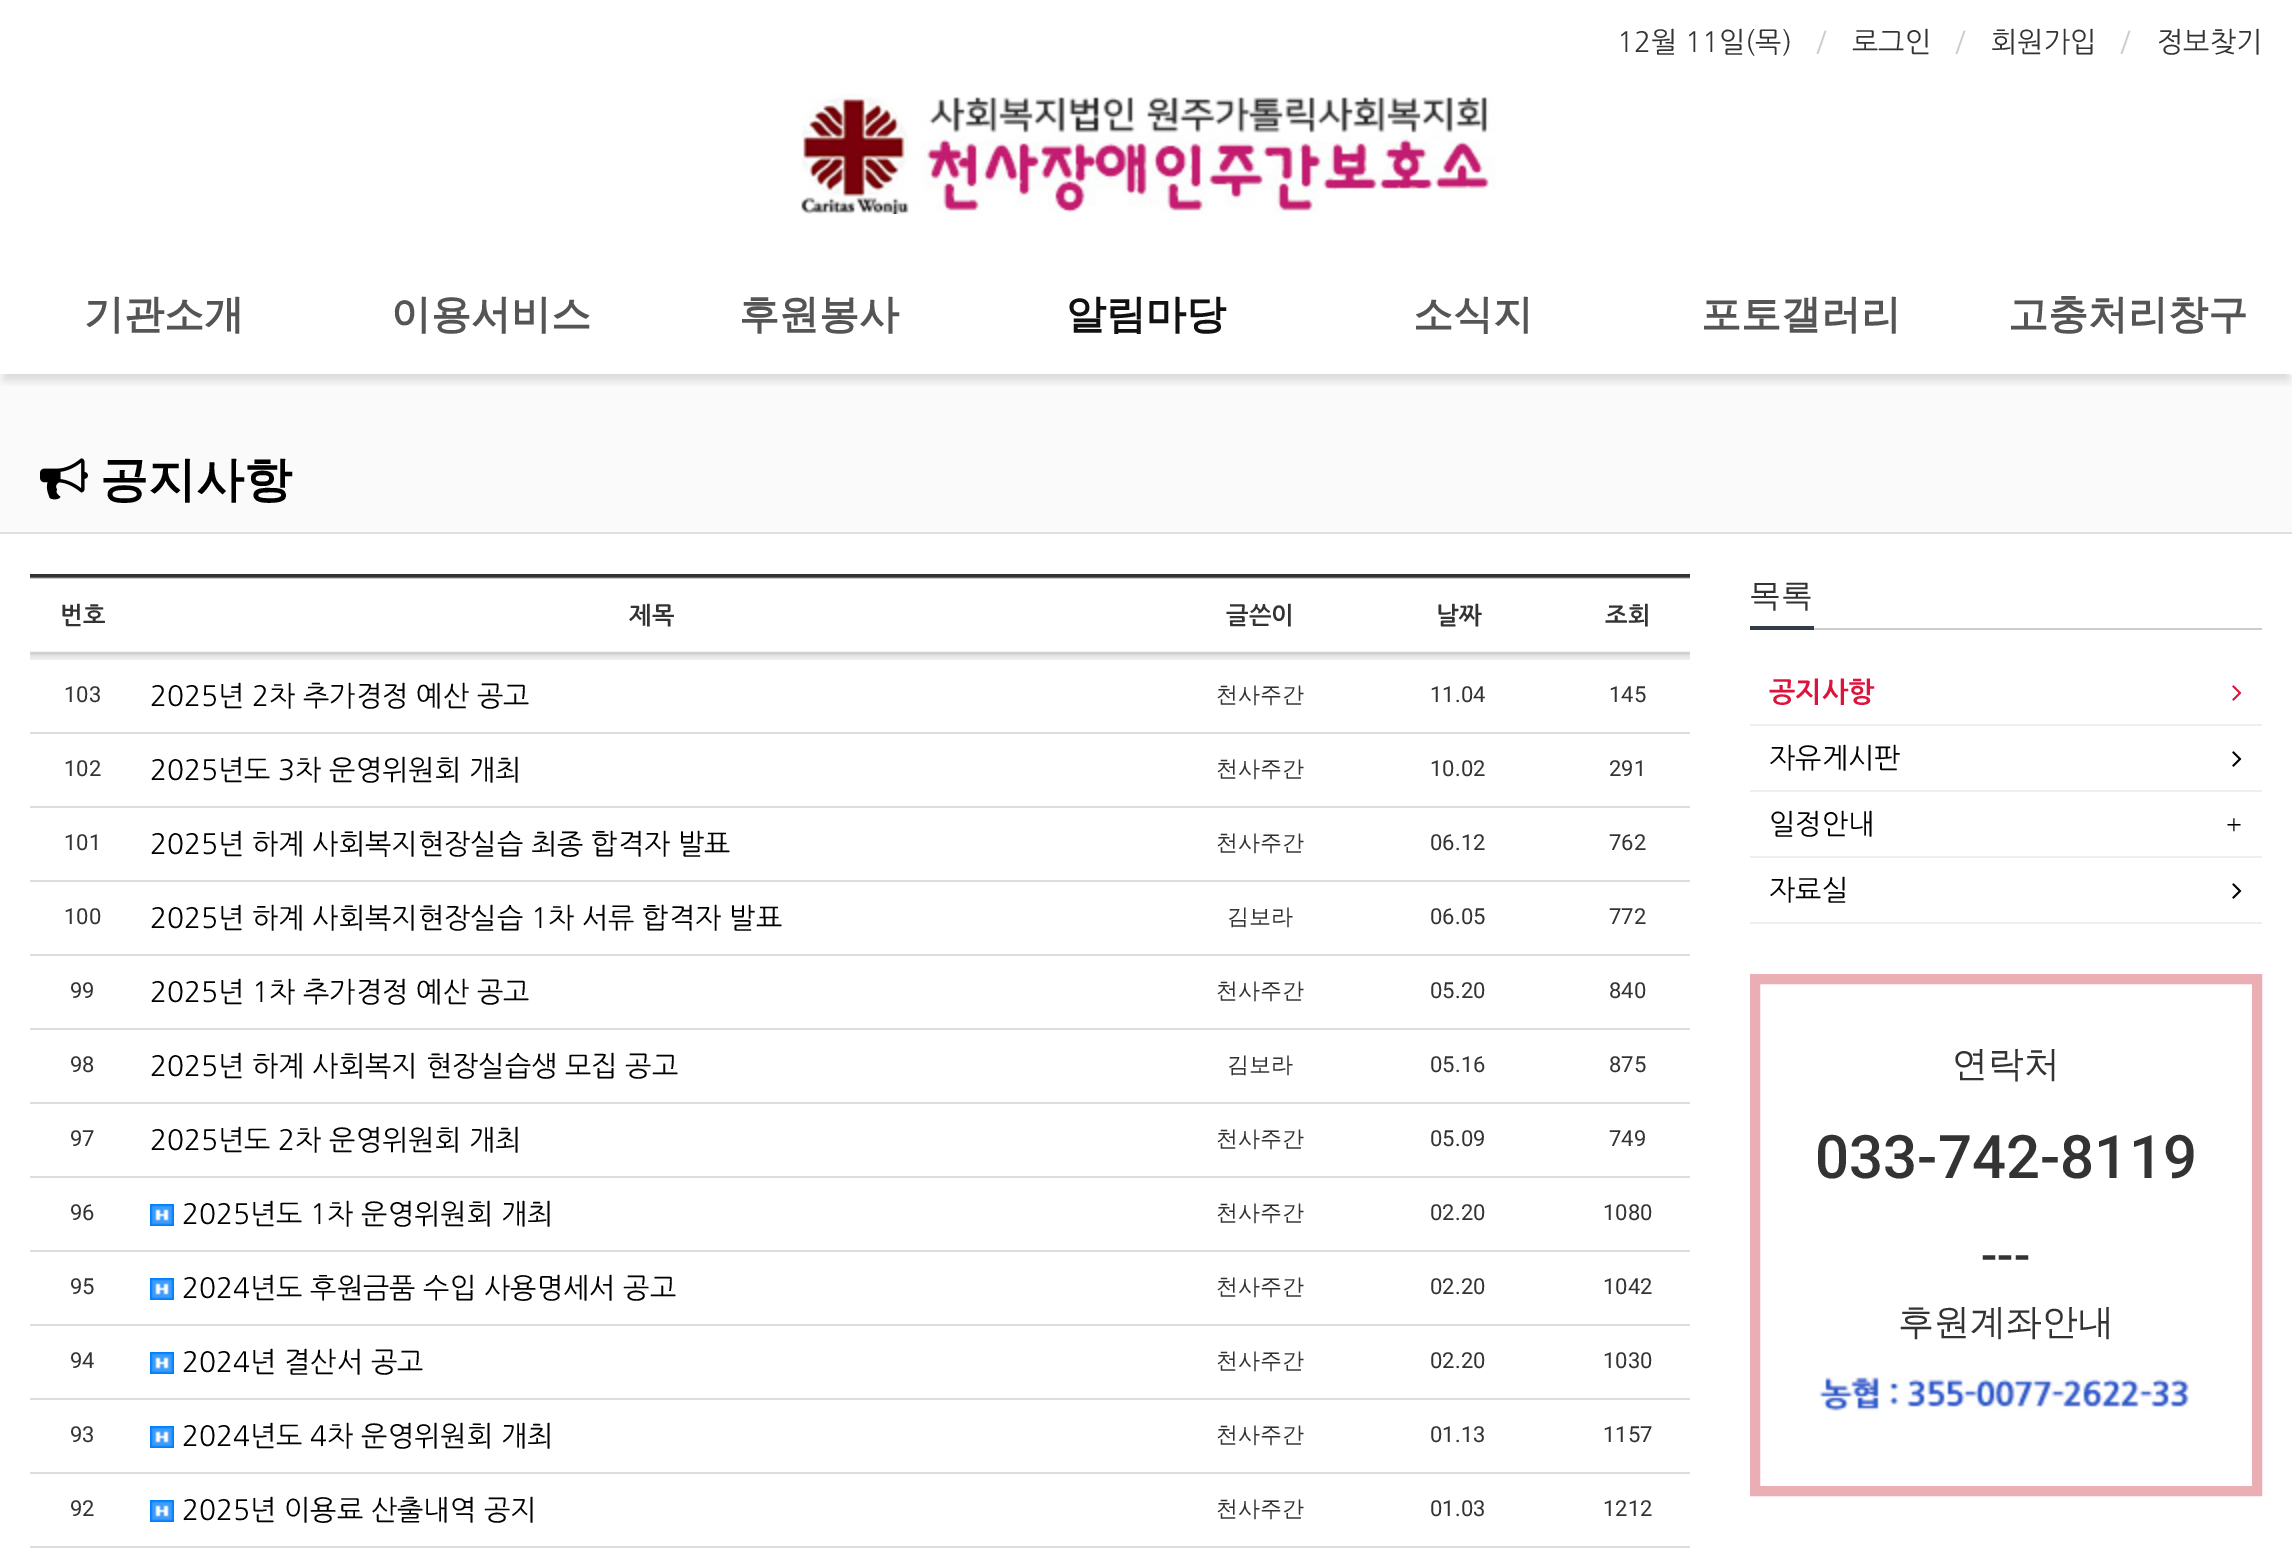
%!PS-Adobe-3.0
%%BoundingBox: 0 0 2292 1563
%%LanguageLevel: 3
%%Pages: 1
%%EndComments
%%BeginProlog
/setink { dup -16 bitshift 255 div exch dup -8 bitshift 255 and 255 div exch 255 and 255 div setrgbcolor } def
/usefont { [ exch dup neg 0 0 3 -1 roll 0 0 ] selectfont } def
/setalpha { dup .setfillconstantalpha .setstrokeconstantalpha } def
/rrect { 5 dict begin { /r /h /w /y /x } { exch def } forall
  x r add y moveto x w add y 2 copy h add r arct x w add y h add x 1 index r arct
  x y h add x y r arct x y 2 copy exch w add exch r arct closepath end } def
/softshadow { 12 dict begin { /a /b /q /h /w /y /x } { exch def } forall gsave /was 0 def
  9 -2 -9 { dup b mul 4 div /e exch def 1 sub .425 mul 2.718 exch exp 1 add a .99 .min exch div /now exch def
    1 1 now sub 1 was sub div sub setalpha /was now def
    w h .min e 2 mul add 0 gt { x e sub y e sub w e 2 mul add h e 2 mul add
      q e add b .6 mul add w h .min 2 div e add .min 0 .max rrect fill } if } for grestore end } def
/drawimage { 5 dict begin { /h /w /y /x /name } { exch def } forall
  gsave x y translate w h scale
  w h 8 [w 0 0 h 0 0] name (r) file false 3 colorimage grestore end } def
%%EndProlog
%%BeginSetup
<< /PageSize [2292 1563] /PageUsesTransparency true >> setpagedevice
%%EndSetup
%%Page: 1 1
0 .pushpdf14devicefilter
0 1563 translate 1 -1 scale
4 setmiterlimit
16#FFFFFF setink
0 0 2292 1563 rectfill
/NanumGothic-Regular 28 usefont
16#333333 setink
1617 52 moveto (12월 11일\(목\)) show
16#CCCCCC setink
1816 52 moveto (/) show
16#333333 setink
1852 52 moveto (로그인) show
16#CCCCCC setink
1955 52 moveto (/) show
16#333333 setink
1991 52 moveto (회원가입) show
16#CCCCCC setink
2120 52 moveto (/) show
16#333333 setink
2157 52 moveto (정보찾기) show
(img1.raw) 801 94 695 120 drawimage
16#FAFAFA setink
0 374 2292 158 rectfill
gsave
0 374 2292 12 rectclip
16#191919 setink
4 268 2284 112 0 5 0.15 softshadow
grestore
/WenQuanYiZenHei-Bold 40 usefont
16#555555 setink
[
    [(기관소개) 84 328]
    [(이용서비스) 391 328]
    [(후원봉사) 739 328]
] { aload pop moveto show } forall
16#111111 setink
1066 328 moveto (알림마당) show
16#555555 setink
[
    [(소식지) 1413 328]
    [(포토갤러리) 1701 328]
    [(고충처리창구) 2008 328]
] { aload pop moveto show } forall
16#DFDFDF setink
0 532 2292 2 rectfill
(img2.raw) 40 458 48 42 drawimage
/WenQuanYiZenHei-Bold 48 usefont
16#000000 setink
100 496 moveto (공지사항) show
(img3.raw) 30 574 104 86 drawimage
/NanumGothic-Bold 24 usefont
16#333333 setink
60 624 moveto (번호) show
(img4.raw) 134 574 1036 86 drawimage
629 624 moveto (제목) show
(img5.raw) 1170 574 180 86 drawimage
1226 624 moveto (글쓴이) show
(img6.raw) 1350 574 216 86 drawimage
1436 624 moveto (날짜) show
(img7.raw) 1566 574 124 86 drawimage
1605 624 moveto (조회) show
/Roboto-Regular 22 usefont
64 702 moveto (103) show
/NanumGothic-Regular 28 usefont
16#000000 setink
150 706 moveto (2025년 2차 추가경정 예산 공고) show
/WenQuanYiZenHei-Medium 22 usefont
16#333333 setink
1216 702 moveto (천사주간) show
/Roboto-Regular 22 usefont
[
    [(11.04) 1430 702]
    [(145) 1609 702]
    [(102) 64 776]
] { aload pop moveto show } forall
/NanumGothic-Regular 28 usefont
16#000000 setink
150 780 moveto (2025년도 3차 운영위원회 개최) show
/WenQuanYiZenHei-Medium 22 usefont
16#333333 setink
1216 776 moveto (천사주간) show
/Roboto-Regular 22 usefont
1430 776 moveto (10.02) show
16#DDDDDD setink
30 732 1660 2 rectfill
16#333333 setink
1609 776 moveto (291) show
64 850 moveto (101) show
/NanumGothic-Regular 28 usefont
16#000000 setink
150 854 moveto (2025년 하계 사회복지현장실습 최종 합격자 발표) show
/WenQuanYiZenHei-Medium 22 usefont
16#333333 setink
1216 850 moveto (천사주간) show
/Roboto-Regular 22 usefont
1430 850 moveto (06.12) show
16#DDDDDD setink
30 806 1660 2 rectfill
16#333333 setink
1609 850 moveto (762) show
64 924 moveto (100) show
/NanumGothic-Regular 28 usefont
16#000000 setink
150 928 moveto (2025년 하계 사회복지현장실습 1차 서류 합격자 발표) show
/WenQuanYiZenHei-Medium 22 usefont
16#333333 setink
1227 924 moveto (김보라) show
/Roboto-Regular 22 usefont
1430 924 moveto (06.05) show
16#DDDDDD setink
30 880 1660 2 rectfill
16#333333 setink
1609 924 moveto (772) show
70 998 moveto (99) show
/NanumGothic-Regular 28 usefont
16#000000 setink
150 1002 moveto (2025년 1차 추가경정 예산 공고) show
/WenQuanYiZenHei-Medium 22 usefont
16#333333 setink
1216 998 moveto (천사주간) show
/Roboto-Regular 22 usefont
1430 998 moveto (05.20) show
16#DDDDDD setink
30 954 1660 2 rectfill
16#333333 setink
1609 998 moveto (840) show
70 1072 moveto (98) show
/NanumGothic-Regular 28 usefont
16#000000 setink
150 1076 moveto (2025년 하계 사회복지 현장실습생 모집 공고) show
/WenQuanYiZenHei-Medium 22 usefont
16#333333 setink
1227 1072 moveto (김보라) show
/Roboto-Regular 22 usefont
1430 1072 moveto (05.16) show
16#DDDDDD setink
30 1028 1660 2 rectfill
16#333333 setink
1609 1072 moveto (875) show
70 1146 moveto (97) show
/NanumGothic-Regular 28 usefont
16#000000 setink
150 1150 moveto (2025년도 2차 운영위원회 개최) show
/WenQuanYiZenHei-Medium 22 usefont
16#333333 setink
1216 1146 moveto (천사주간) show
/Roboto-Regular 22 usefont
1430 1146 moveto (05.09) show
16#DDDDDD setink
30 1102 1660 2 rectfill
16#333333 setink
1609 1146 moveto (749) show
70 1220 moveto (96) show
(img8.raw) 150 1204 24 22 drawimage
/NanumGothic-Regular 28 usefont
16#000000 setink
182 1224 moveto (2025년도 1차 운영위원회 개최) show
/WenQuanYiZenHei-Medium 22 usefont
16#333333 setink
1216 1220 moveto (천사주간) show
/Roboto-Regular 22 usefont
1430 1220 moveto (02.20) show
16#DDDDDD setink
30 1176 1660 2 rectfill
16#333333 setink
1603 1220 moveto (1080) show
70 1294 moveto (95) show
(img8.raw) 150 1278 24 22 drawimage
/NanumGothic-Regular 28 usefont
16#000000 setink
182 1298 moveto (2024년도 후원금품 수입 사용명세서 공고) show
/WenQuanYiZenHei-Medium 22 usefont
16#333333 setink
1216 1294 moveto (천사주간) show
/Roboto-Regular 22 usefont
1430 1294 moveto (02.20) show
16#DDDDDD setink
30 1250 1660 2 rectfill
16#333333 setink
1603 1294 moveto (1042) show
70 1368 moveto (94) show
(img8.raw) 150 1352 24 22 drawimage
/NanumGothic-Regular 28 usefont
16#000000 setink
182 1372 moveto (2024년 결산서 공고) show
/WenQuanYiZenHei-Medium 22 usefont
16#333333 setink
1216 1368 moveto (천사주간) show
/Roboto-Regular 22 usefont
1430 1368 moveto (02.20) show
16#DDDDDD setink
30 1324 1660 2 rectfill
16#333333 setink
1603 1368 moveto (1030) show
70 1442 moveto (93) show
(img8.raw) 150 1426 24 22 drawimage
/NanumGothic-Regular 28 usefont
16#000000 setink
182 1446 moveto (2024년도 4차 운영위원회 개최) show
/WenQuanYiZenHei-Medium 22 usefont
16#333333 setink
1216 1442 moveto (천사주간) show
/Roboto-Regular 22 usefont
1430 1442 moveto (01.13) show
16#DDDDDD setink
30 1398 1660 2 rectfill
16#333333 setink
1603 1442 moveto (1157) show
70 1516 moveto (92) show
(img8.raw) 150 1500 24 22 drawimage
/NanumGothic-Regular 28 usefont
16#000000 setink
182 1520 moveto (2025년 이용료 산출내역 공지) show
/WenQuanYiZenHei-Medium 22 usefont
16#333333 setink
1216 1516 moveto (천사주간) show
/Roboto-Regular 22 usefont
1430 1516 moveto (01.03) show
16#DDDDDD setink
30 1472 1660 2 rectfill
16#333333 setink
1603 1516 moveto (1212) show
[
    [30 1546 1660 2 16#DDDDDD]
    [1814 628 448 2 16#CCCCCC]
    [1750 626 64 4 16#323C46]
] { aload pop setink rectfill } forall
/WenQuanYiZenHei-Medium 32 usefont
16#333333 setink
1749 606 moveto (목록) show
16#EEEEEE setink
1750 724 512 2 rectfill
/NanumGothic-Bold 28 usefont
16#DC143C setink
1769 702 moveto (공지사항) show
(img9.raw) 2232 685 10 16 drawimage
16#EEEEEE setink
1750 790 512 2 rectfill
/NanumGothic-Regular 28 usefont
16#000000 setink
1769 768 moveto (자유게시판) show
(img10.raw) 2232 751 10 16 drawimage
16#EEEEEE setink
1750 856 512 2 rectfill
16#000000 setink
1769 834 moveto (일정안내) show
/LiberationSerif-Regular 28 usefont
2226 834 moveto (+) show
16#EEEEEE setink
1750 922 512 2 rectfill
/NanumGothic-Regular 28 usefont
16#000000 setink
1769 900 moveto (자료실) show
(img10.raw) 2232 883 10 16 drawimage
16#EBAEB5 setink
10 setlinewidth
1755 979 502 512 rectstroke
/WenQuanYiZenHei-Medium 36 usefont
16#333333 setink
1952 1076 moveto (연락처) show
/Roboto-Medium 60 usefont
1815 1178 moveto (033-742-8119) show
/Roboto-Medium 48 usefont
1981 1272 moveto (---) show
/WenQuanYiZenHei-Medium 36 usefont
1898 1334 moveto (후원계좌안내) show
(img11.raw) 1819 1377 370 34 drawimage
.poppdf14devicefilter showpage
%%EOF
